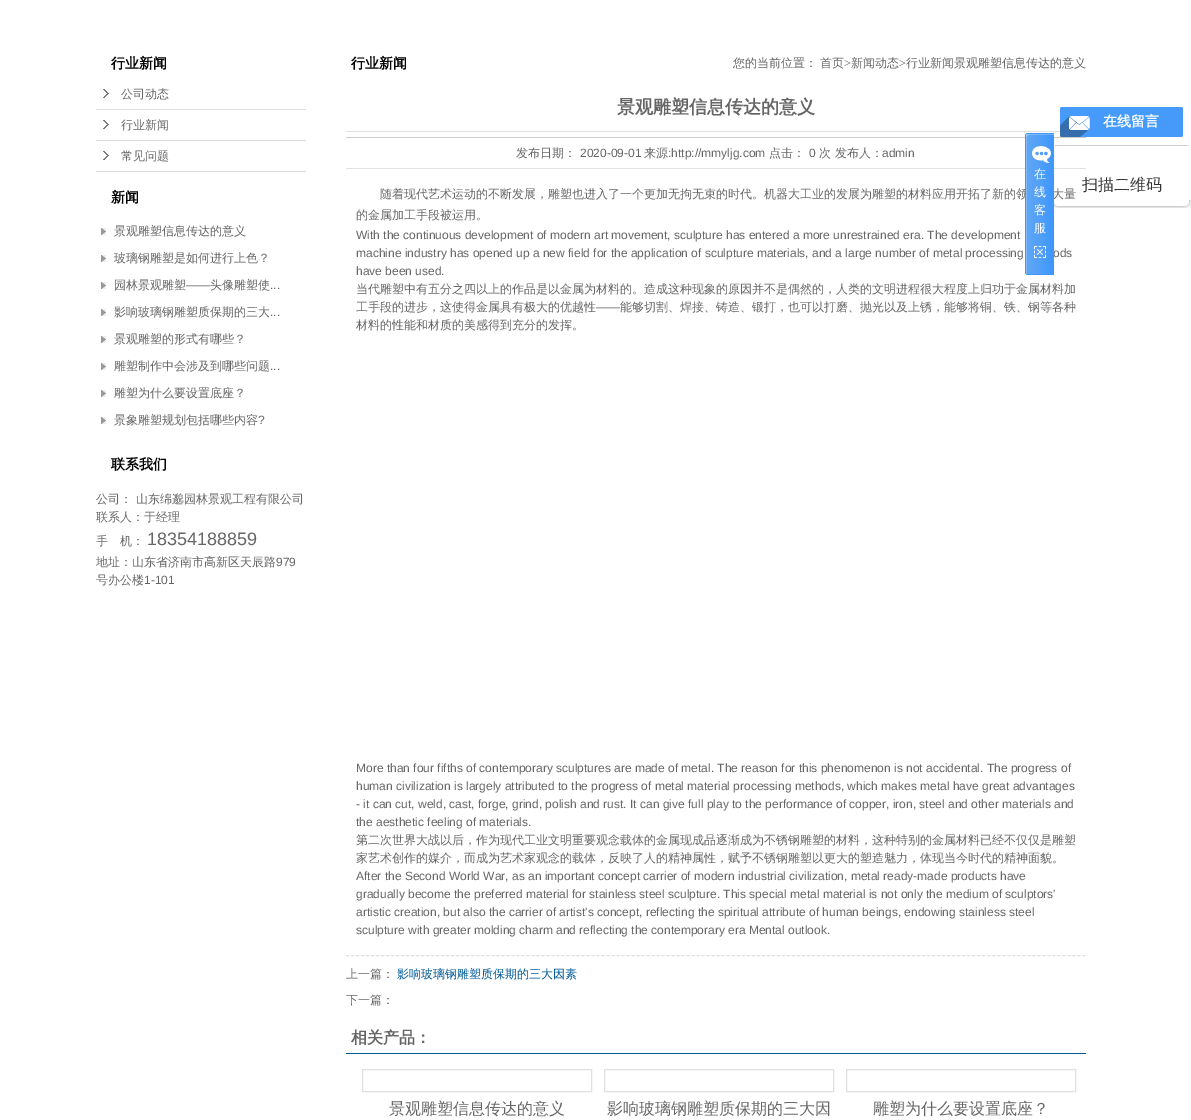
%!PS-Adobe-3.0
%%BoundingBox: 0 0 1191 1120
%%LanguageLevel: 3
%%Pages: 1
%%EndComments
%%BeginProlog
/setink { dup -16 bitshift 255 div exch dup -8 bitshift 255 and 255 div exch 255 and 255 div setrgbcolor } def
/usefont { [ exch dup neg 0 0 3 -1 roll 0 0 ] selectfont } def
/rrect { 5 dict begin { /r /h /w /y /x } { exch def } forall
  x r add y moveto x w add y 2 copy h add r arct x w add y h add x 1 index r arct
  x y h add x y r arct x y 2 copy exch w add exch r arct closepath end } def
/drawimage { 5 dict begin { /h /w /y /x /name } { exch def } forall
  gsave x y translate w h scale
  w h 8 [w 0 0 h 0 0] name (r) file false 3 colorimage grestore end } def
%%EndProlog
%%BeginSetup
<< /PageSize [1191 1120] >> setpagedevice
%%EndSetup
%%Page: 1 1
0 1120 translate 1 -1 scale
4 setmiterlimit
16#FFFFFF setink
0 0 1191 1120 rectfill
/WenQuanYiZenHei-Bold 14 usefont
16#000000 setink
111 68 moveto (行业新闻) show
(img1.raw) 103 89 6 9 drawimage
16#DDDDDD setink
96 109 210 1 rectfill
/WenQuanYiZenHei-Medium 12 usefont
16#666666 setink
121 98 moveto (公司动态) show
(img1.raw) 103 120 6 9 drawimage
16#DDDDDD setink
96 140 210 1 rectfill
16#666666 setink
121 129 moveto (行业新闻) show
(img1.raw) 103 151 6 9 drawimage
16#DDDDDD setink
96 171 210 1 rectfill
16#666666 setink
121 160 moveto (常见问题) show
/WenQuanYiZenHei-Bold 14 usefont
16#000000 setink
111 202 moveto (新闻) show
(img2.raw) 101 228 5 7 drawimage
/WenQuanYiZenHei-Medium 12 usefont
16#666666 setink
114 235 moveto (景观雕塑信息传达的意义) show
(img2.raw) 101 255 5 7 drawimage
114 262 moveto (玻璃钢雕塑是如何进行上色？) show
(img2.raw) 101 282 5 7 drawimage
114 289 moveto (园林景观雕塑) show
/LiberationSans-Regular 12 usefont
186 289 moveto (——) show
/WenQuanYiZenHei-Medium 12 usefont
210 289 moveto (头像雕塑使) show
/LiberationSans-Regular 12 usefont
270 289 moveto (...) show
(img2.raw) 101 309 5 7 drawimage
/WenQuanYiZenHei-Medium 12 usefont
114 316 moveto (影响玻璃钢雕塑质保期的三大) show
/LiberationSans-Regular 12 usefont
270 316 moveto (...) show
(img2.raw) 101 336 5 7 drawimage
/WenQuanYiZenHei-Medium 12 usefont
114 343 moveto (景观雕塑的形式有哪些？) show
(img2.raw) 101 363 5 7 drawimage
114 370 moveto (雕塑制作中会涉及到哪些问题) show
/LiberationSans-Regular 12 usefont
270 370 moveto (...) show
(img2.raw) 101 390 5 7 drawimage
/WenQuanYiZenHei-Medium 12 usefont
114 397 moveto (雕塑为什么要设置底座？) show
(img2.raw) 101 417 5 7 drawimage
114 424 moveto (景象雕塑规划包括哪些内容) show
/LiberationSans-Regular 12 usefont
258 424 moveto (?) show
/WenQuanYiZenHei-Bold 14 usefont
16#000000 setink
111 469 moveto (联系我们) show
/WenQuanYiZenHei-Medium 12 usefont
16#666666 setink
[
    [(公司： 山东绵邈园林景观工程有限公司) 96 503]
    [(联系人：于经理) 96 521]
    [(手　机：) 96 545]
] { aload pop moveto show } forall
/LiberationSans-Regular 18 usefont
147 545 moveto (18354188859) show
/WenQuanYiZenHei-Medium 12 usefont
96 566 moveto (地址：山东省济南市高新区天辰路) show
/LiberationSans-Regular 12 usefont
276 566 moveto (979) show
/WenQuanYiZenHei-Medium 12 usefont
96 584 moveto (号办公楼) show
/LiberationSans-Regular 12 usefont
144 584 moveto (1-101) show
/WenQuanYiZenHei-Bold 14 usefont
16#000000 setink
351 68 moveto (行业新闻) show
/WenQuanYiZenHei-Medium 12 usefont
16#666666 setink
733 67 moveto (您的当前位置：) show
820 67 moveto (首页) show
/LiberationSerif-Regular 12 usefont
844 67 moveto (>) show
/WenQuanYiZenHei-Medium 12 usefont
851 67 moveto (新闻动态) show
/LiberationSerif-Regular 12 usefont
899 67 moveto (>) show
/WenQuanYiZenHei-Medium 12 usefont
906 67 moveto (行业新闻景观雕塑信息传达的意义) show
16#E0E1DC setink
346 131 714 1 rectfill
/WenQuanYiZenHei-Bold 18 usefont
16#666666 setink
617 113 moveto (景观雕塑信息传达的意义) show
16#E1E4E6 setink
346 168 740 1 rectfill
16#CCCCCC setink
346 137 740 1 rectfill
/WenQuanYiZenHei-Medium 12 usefont
16#666666 setink
516 157 moveto (发布日期：) show
/LiberationSans-Regular 12 usefont
580 157 moveto (2020-09-01) show
/WenQuanYiZenHei-Medium 12 usefont
644 157 moveto (来源) show
/LiberationSans-Regular 12 usefont
668 157 moveto (:http://mmyljg.com) show
/WenQuanYiZenHei-Medium 12 usefont
769 157 moveto (点击：) show
/LiberationSans-Regular 12 usefont
809 157 moveto (0) show
/WenQuanYiZenHei-Medium 12 usefont
819 157 moveto (次 发布人：) show
/LiberationSans-Regular 12 usefont
882 157 moveto (admin) show
/WenQuanYiZenHei-Medium 12 usefont
[
    [(随着现代艺术运动的不断发展，雕塑也进入了一个更加无拘无束的时代。机器大工业的发展为雕塑的材料应用开拓了新的领) 380 198]
    [(大量) 1052 198]
    [(的金属加工手段被运用。) 356 219]
] { aload pop moveto show } forall
/LiberationSans-Regular 12 usefont
[
    [(With the continuous development of modern art movement, sculpture has entered a more unrestrained era. The development) 356 239]
    [(machine industry has opened up a new field for the application of sculpture materials, and a large number of metal processing) 356 257]
    [(ods) 1053 257]
    [(have been used.) 356 275]
] { aload pop moveto show } forall
/WenQuanYiZenHei-Medium 12 usefont
356 293 moveto (当代雕塑中有五分之四以上的作品是以金属为材料的。造成这种现象的原因并不是偶然的，人类的文明进程很大程度上归功于金属材料加) show
356 311 moveto (工手段的进步，这使得金属具有极大的优越性) show
/LiberationSans-Regular 12 usefont
596 311 moveto (——) show
/WenQuanYiZenHei-Medium 12 usefont
620 311 moveto (能够切割、焊接、铸造、锻打，也可以打磨、抛光以及上锈，能够将铜、铁、钢等各种) show
356 329 moveto (材料的性能和材质的美感得到充分的发挥。) show
/LiberationSans-Regular 12 usefont
[
    [(More than four fifths of contemporary sculptures are made of metal. The reason for this phenomenon is not accidental. The progress of) 356 772]
    [(human civilization is largely attributed to the progress of metal material processing methods, which makes metal have great advantages) 356 790]
    [(- it can cut, weld, cast, forge, grind, polish and rust. It can give full play to the performance of copper, iron, steel and other materials and) 356 808]
    [(the aesthetic feeling of materials.) 356 826]
] { aload pop moveto show } forall
/WenQuanYiZenHei-Medium 12 usefont
356 844 moveto (第二次世界大战以后，作为现代工业文明重要观念载体的金属现成品逐渐成为不锈钢雕塑的材料，这种特别的金属材料已经不仅仅是雕塑) show
356 862 moveto (家艺术创作的媒介，而成为艺术家观念的载体，反映了人的精神属性，赋予不锈钢雕塑以更大的塑造魅力，体现当今时代的精神面貌。) show
/LiberationSans-Regular 12 usefont
[
    [(After the Second World War, as an important concept carrier of modern industrial civilization, metal ready-made products have) 356 880]
    [(gradually become the preferred material for stainless steel sculpture. This special metal material is not only the medium of sculptors') 356 898]
    [(artistic creation, but also the carrier of artist's concept, reflecting the spiritual attribute of human beings, endowing stainless steel) 356 916]
    [(sculpture with greater molding charm and reflecting the contemporary era Mental outlook.) 356 934]
] { aload pop moveto show } forall
16#E0E1DC setink
[3 2.01] 0 setdash
346 955.5 moveto 1086 955.5 lineto stroke
/WenQuanYiZenHei-Medium 12 usefont
16#666666 setink
346 978 moveto (上一篇：) show
16#005A98 setink
397 978 moveto (影响玻璃钢雕塑质保期的三大因素) show
16#666666 setink
346 1004 moveto (下一篇：) show
16#005A98 setink
346 1053 740 1 rectfill
/WenQuanYiZenHei-Bold 16 usefont
16#666666 setink
351 1043 moveto (相关产品：) show
16#E0E1DC setink
[] 0 setdash
362.5 1069.5 229 22 rectstroke
/WenQuanYiZenHei-Medium 16 usefont
16#666666 setink
389 1114 moveto (景观雕塑信息传达的意义) show
16#E0E1DC setink
604.5 1069.5 229 22 rectstroke
16#666666 setink
607 1114 moveto (影响玻璃钢雕塑质保期的三大因) show
16#E0E1DC setink
846.5 1069.5 229 22 rectstroke
16#666666 setink
873 1114 moveto (雕塑为什么要设置底座？) show
16#459AFA setink
1060 107 123 30 2 rrect fill
(img3.raw) 1060 116 30 21 drawimage
/WenQuanYiZenHei-Bold 14 usefont
16#FFFFFF setink
1103 126 moveto (在线留言) show
16#CCCCCC setink
1055 145 133 1 rectfill
/WenQuanYiZenHei-Medium 16 usefont
16#333333 setink
1082 190 moveto (扫描二维码) show
(img4.raw) 1054 200 137 8 drawimage
(img5.raw) 1025 133 29 142 drawimage
/WenQuanYiZenHei-Medium 12 usefont
16#FFFFFF setink
[
    [(在) 1034 178]
    [(线) 1034 196]
    [(客) 1034 214]
    [(服) 1034 232]
] { aload pop moveto show } forall
(img6.raw) 1034 246 12 12 drawimage
showpage
%%EOF
